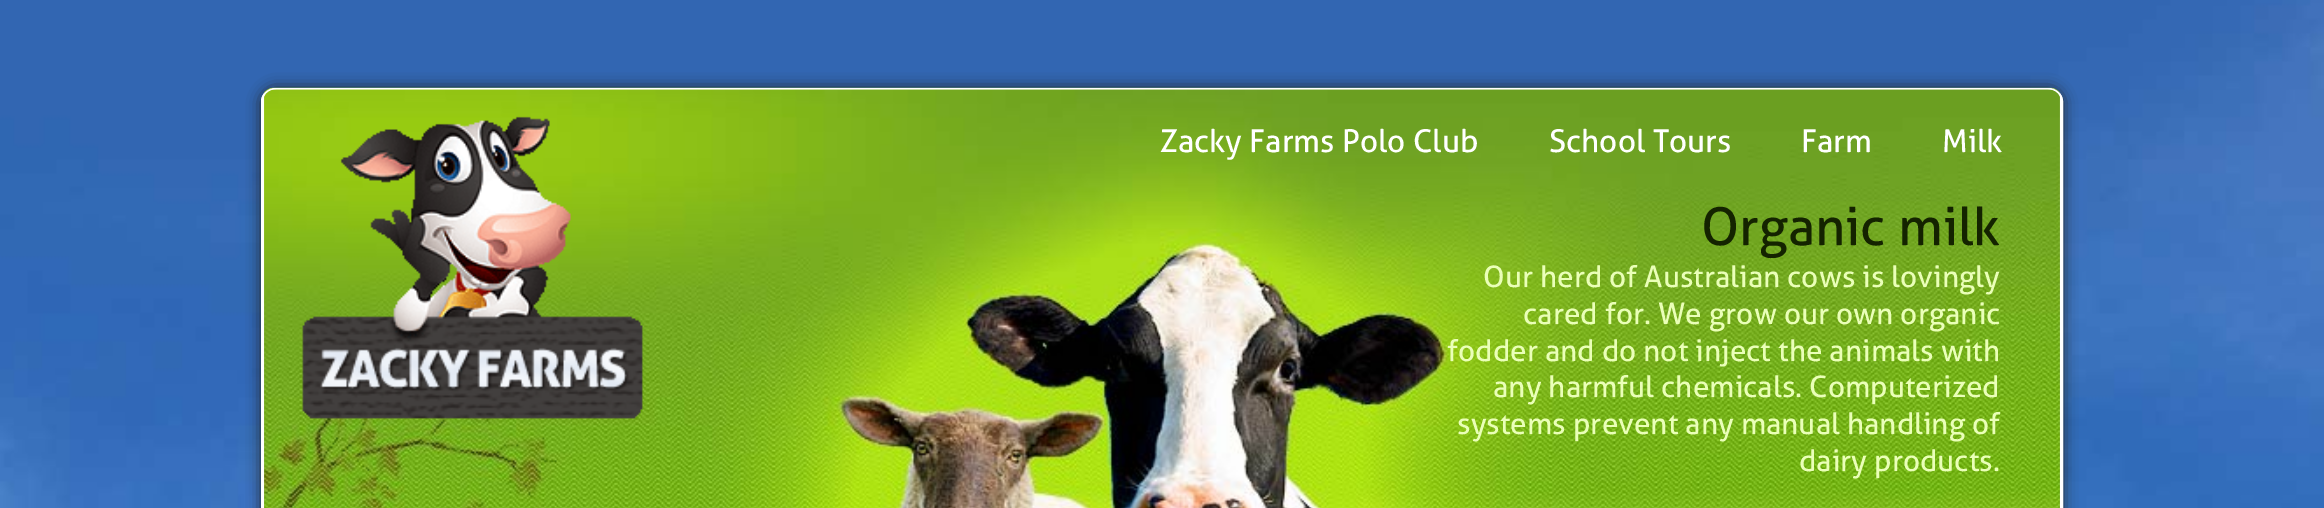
%!PS-Adobe-3.0
%%BoundingBox: 0 0 2324 508
%%LanguageLevel: 3
%%Pages: 1
%%EndComments
%%BeginProlog
/setink { dup -16 bitshift 255 div exch dup -8 bitshift 255 and 255 div exch 255 and 255 div setrgbcolor } def
/usefont { [ exch dup neg 0 0 3 -1 roll 0 0 ] selectfont } def
/setalpha { dup .setfillconstantalpha .setstrokeconstantalpha } def
/rrect { 5 dict begin { /r /h /w /y /x } { exch def } forall
  x r add y moveto x w add y 2 copy h add r arct x w add y h add x 1 index r arct
  x y h add x y r arct x y 2 copy exch w add exch r arct closepath end } def
/softshadow { 12 dict begin { /a /b /q /h /w /y /x } { exch def } forall gsave /was 0 def
  9 -2 -9 { dup b mul 4 div /e exch def 1 sub .425 mul 2.718 exch exp 1 add a .99 .min exch div /now exch def
    1 1 now sub 1 was sub div sub setalpha /was now def
    w h .min e 2 mul add 0 gt { x e sub y e sub w e 2 mul add h e 2 mul add
      q e add b .6 mul add w h .min 2 div e add .min 0 .max rrect fill } if } for grestore end } def
/drawimage { 5 dict begin { /h /w /y /x /name } { exch def } forall
  gsave x y translate w h scale
  w h 8 [w 0 0 h 0 0] name (r) file false 3 colorimage grestore end } def
%%EndProlog
%%BeginSetup
<< /PageSize [2324 508] /PageUsesTransparency true >> setpagedevice
%%EndSetup
%%Page: 1 1
0 .pushpdf14devicefilter
0 508 translate 1 -1 scale
4 setmiterlimit
16#FFFFFF setink
0 0 2324 508 rectfill
(img1.raw) 0 0 2324 508 drawimage
16#222222 setink
261 88 1802 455 14 7 1 softshadow
16#FFFFFF setink
261 88 1802 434 14 rrect fill
(img2.raw) 264 87 1796 421 drawimage
2 setlinewidth
262 89 1800 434 13 rrect stroke
(img4.raw) 264 89 1796 419 drawimage
(img3.raw) 302 116 341 303 drawimage
/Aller-Regular 31.5 usefont
[
    [(Zacky Farms Polo Club) 1160 152]
    [(School Tours) 1549 152]
    [(Farm) 1801 152]
    [(Milk) 1942 152]
] { aload pop moveto show } forall
/Aller-Regular 52.5 usefont
16#142300 setink
1701 245 moveto (Organic milk) show
/Aller-Regular 29.75 usefont
16#EAFFB8 setink
[
    [(Our herd of Australian cows is lovingly) 1483 287]
    [(cared for. We grow our own organic) 1523 324]
    [(fodder and do not inject the animals with) 1447 361]
    [(any harmful chemicals. Computerized) 1493 397]
    [(systems prevent any manual handling of) 1457 434]
    [(dairy products.) 1799 471]
] { aload pop moveto show } forall
.poppdf14devicefilter showpage
%%EOF
